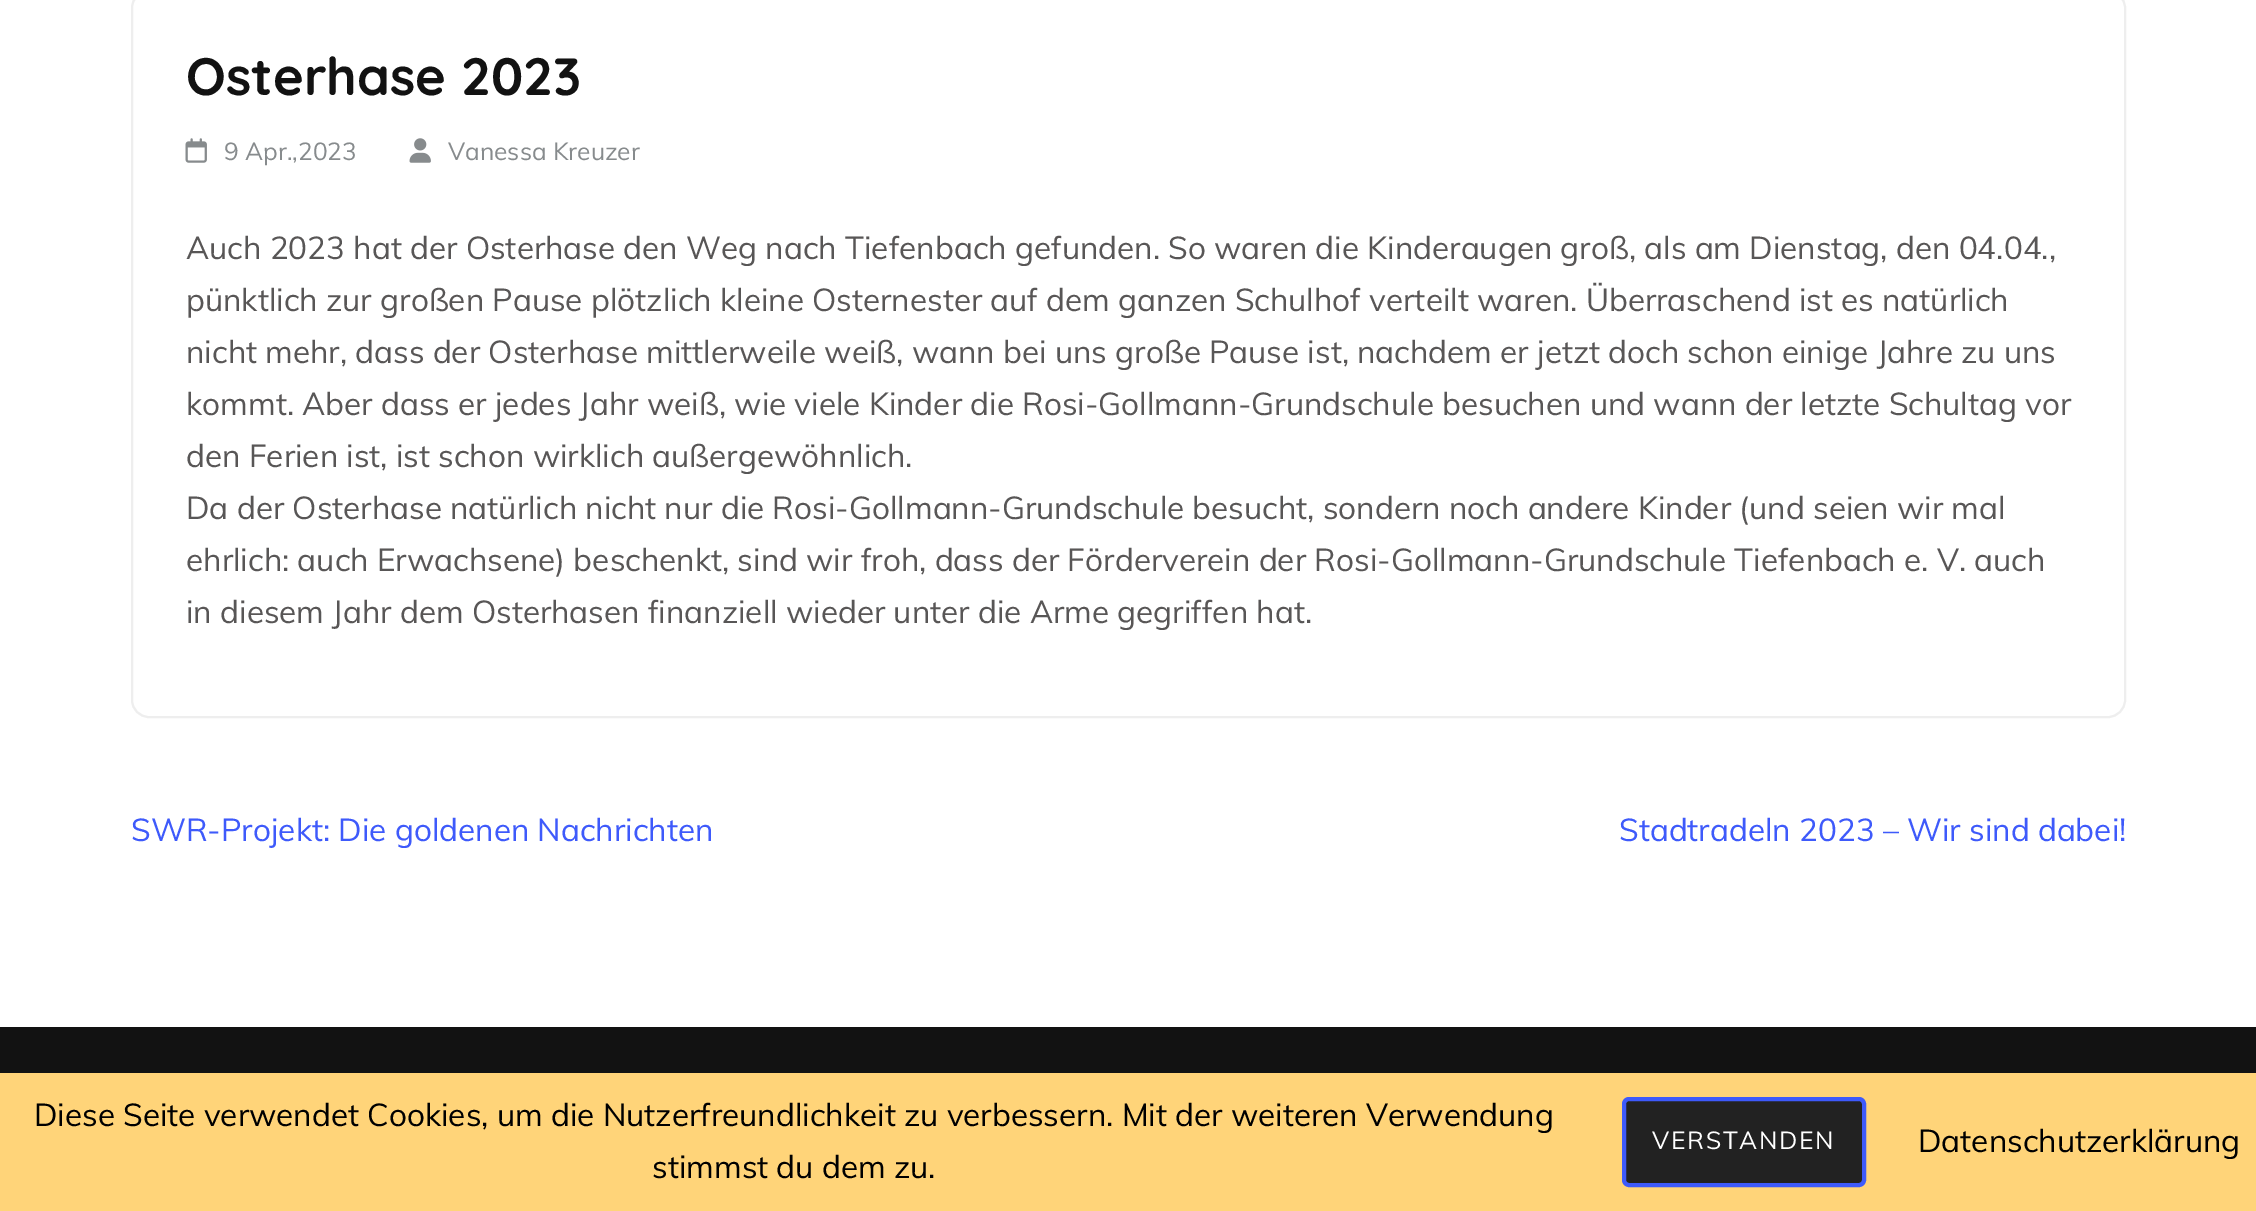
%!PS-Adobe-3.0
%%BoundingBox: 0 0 2256 1211
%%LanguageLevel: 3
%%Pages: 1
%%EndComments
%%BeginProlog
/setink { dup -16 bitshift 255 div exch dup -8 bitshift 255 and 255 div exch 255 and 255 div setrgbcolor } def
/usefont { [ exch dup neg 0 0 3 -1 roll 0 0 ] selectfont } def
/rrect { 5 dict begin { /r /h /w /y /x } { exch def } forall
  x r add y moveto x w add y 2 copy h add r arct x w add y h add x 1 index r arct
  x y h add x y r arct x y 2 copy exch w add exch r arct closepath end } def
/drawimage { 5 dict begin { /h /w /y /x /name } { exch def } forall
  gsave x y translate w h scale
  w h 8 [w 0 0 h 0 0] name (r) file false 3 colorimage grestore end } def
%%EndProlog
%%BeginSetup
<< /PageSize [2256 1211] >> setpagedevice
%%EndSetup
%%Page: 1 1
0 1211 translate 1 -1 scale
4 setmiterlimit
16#FFFFFF setink
0 0 2256 1211 rectfill
16#EEEEEE setink
2 setlinewidth
132 -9 1993 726 17 rrect stroke
/Quicksand-Bold 52.5 usefont
16#121212 setink
186 95 moveto (Osterhase 2023) show
(img1.raw) 185 138 22 25 drawimage
/Muli-Regular 24.5 usefont
16#878B8D setink
224 160 moveto (9 Apr.,2023) show
(img2.raw) 409 138 22 25 drawimage
448 160 moveto (Vanessa Kreuzer) show
/Muli-Regular 31.5 usefont
16#585656 setink
[
    [(Auch 2023 hat der Osterhase den Weg nach Tiefenbach gefunden. So waren die Kinderaugen groß, als am Dienstag, den 04.04.,) 186 259]
    [(pünktlich zur großen Pause plötzlich kleine Osternester auf dem ganzen Schulhof verteilt waren. Überraschend ist es natürlich) 186 311]
    [(nicht mehr, dass der Osterhase mittlerweile weiß, wann bei uns große Pause ist, nachdem er jetzt doch schon einige Jahre zu uns) 186 363]
    [(kommt. Aber dass er jedes Jahr weiß, wie viele Kinder die Rosi-Gollmann-Grundschule besuchen und wann der letzte Schultag vor) 186 415]
    [(den Ferien ist, ist schon wirklich außergewöhnlich.) 186 467]
    [(Da der Osterhase natürlich nicht nur die Rosi-Gollmann-Grundschule besucht, sondern noch andere Kinder \(und seien wir mal) 186 519]
    [(ehrlich: auch Erwachsene\) beschenkt, sind wir froh, dass der Förderverein der Rosi-Gollmann-Grundschule Tiefenbach e. V. auch) 186 571]
    [(in diesem Jahr dem Osterhasen finanziell wieder unter die Arme gegriffen hat.) 186 623]
] { aload pop moveto show } forall
16#3E5AFB setink
131 841 moveto (SWR-Projekt: Die goldenen Nachrichten) show
1619 841 moveto (Stadtradeln 2023 – Wir sind dabei!) show
16#121212 setink
0 1027 2256 46 rectfill
16#FFD479 setink
0 1073 2256 138 rectfill
16#000000 setink
34 1126 moveto (Diese Seite verwendet Cookies, um die Nutzerfreundlichkeit zu verbessern. Mit der weiteren Verwendung) show
652 1178 moveto (stimmst du dem zu.) show
16#222222 setink
1624 1099 240 86 5 rrect gsave fill grestore
16#3E5AFB setink
4 setlinewidth
stroke
/Muli-Regular 24.5 usefont
16#FFFFFF setink
1652 1149 moveto 1.75 0 (VERSTANDEN) ashow
/Muli-Regular 31.5 usefont
16#000000 setink
1918 1152 moveto (Datenschutzerklärung) show
showpage
%%EOF
